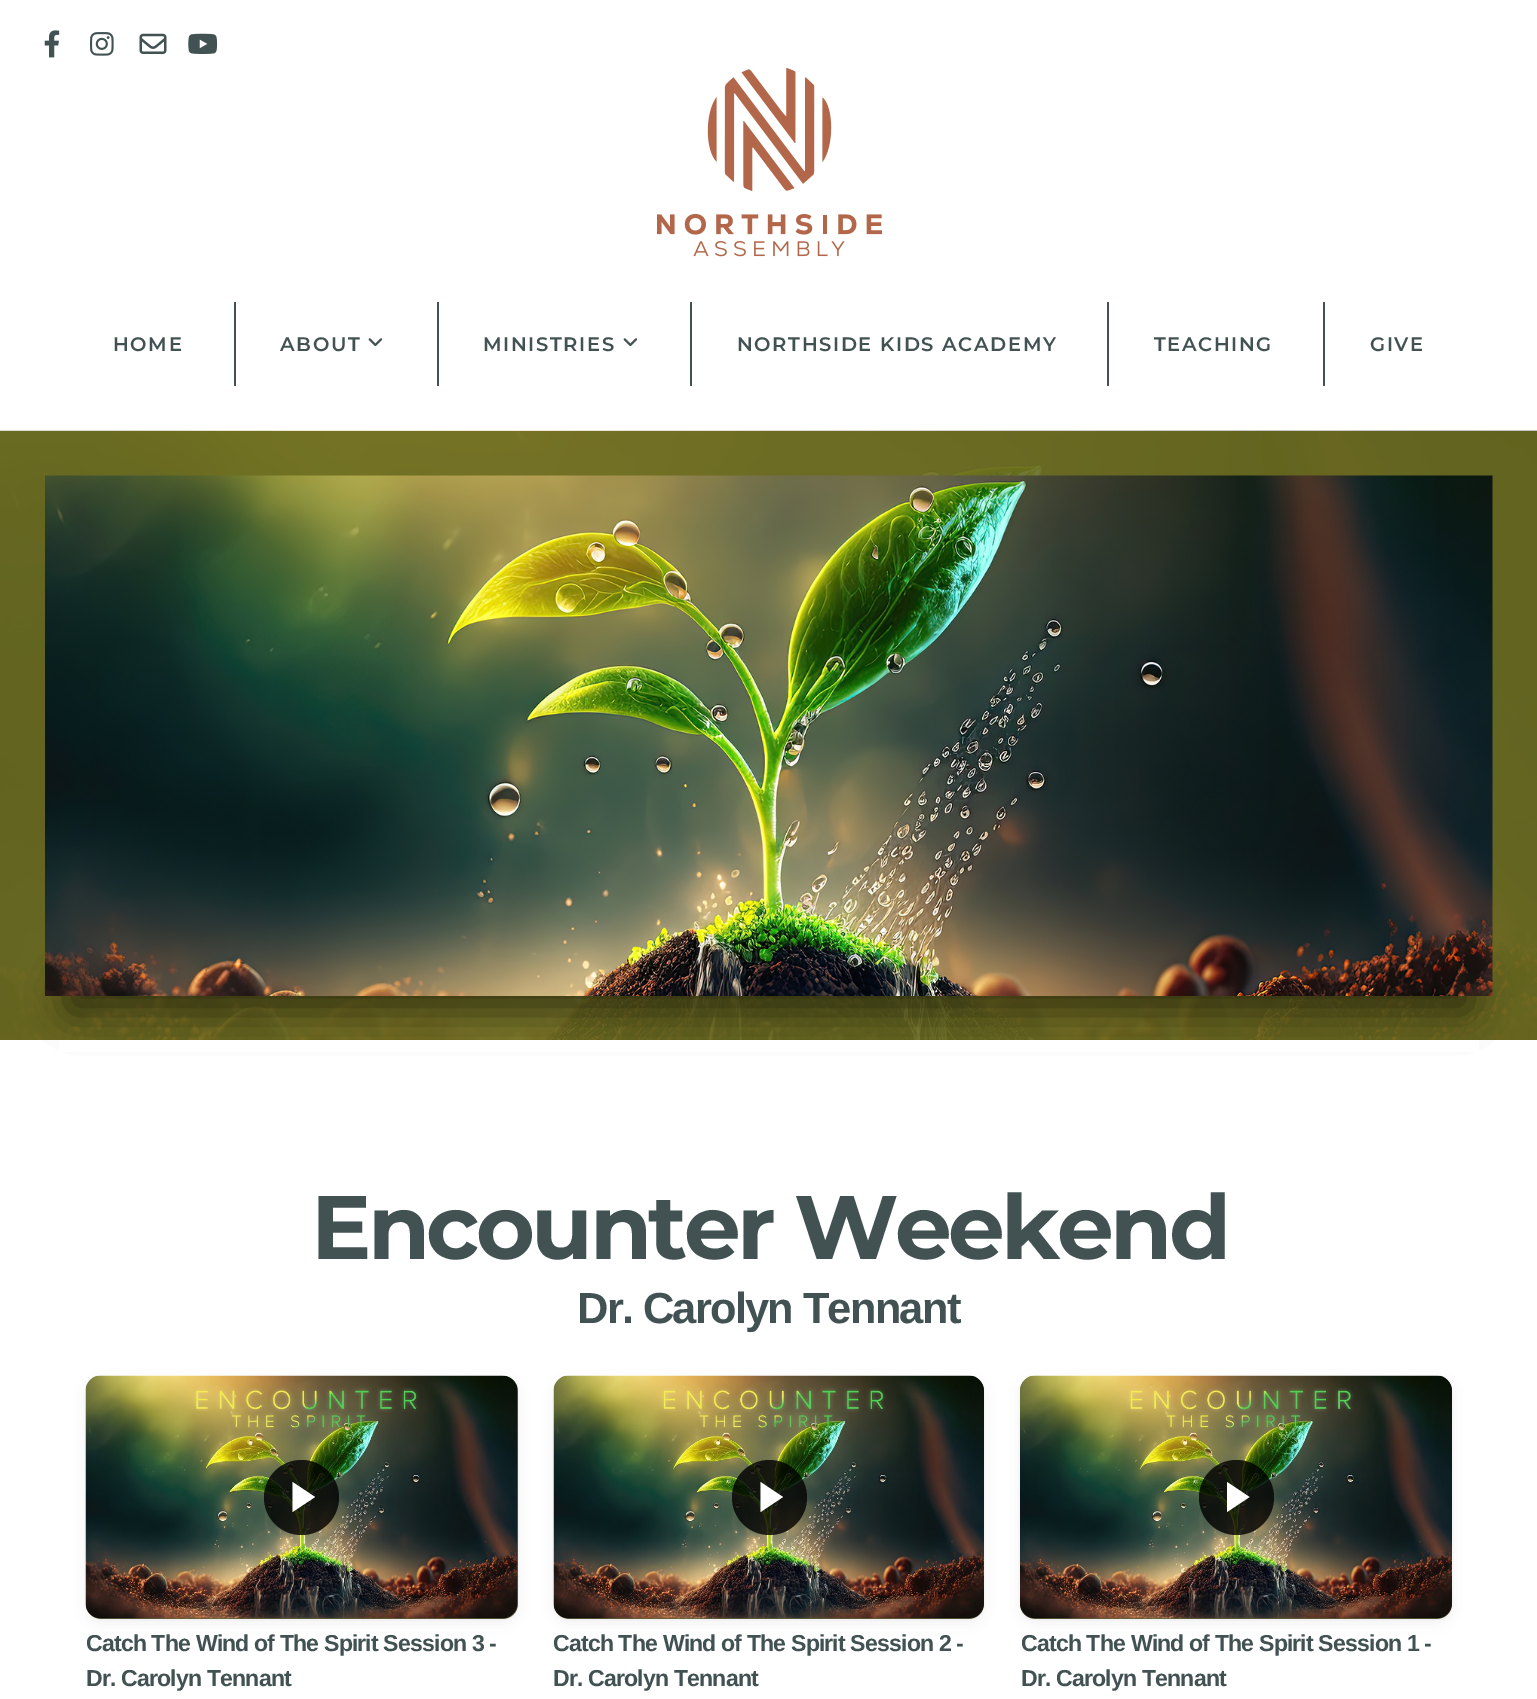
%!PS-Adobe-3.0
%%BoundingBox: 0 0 1537 1699
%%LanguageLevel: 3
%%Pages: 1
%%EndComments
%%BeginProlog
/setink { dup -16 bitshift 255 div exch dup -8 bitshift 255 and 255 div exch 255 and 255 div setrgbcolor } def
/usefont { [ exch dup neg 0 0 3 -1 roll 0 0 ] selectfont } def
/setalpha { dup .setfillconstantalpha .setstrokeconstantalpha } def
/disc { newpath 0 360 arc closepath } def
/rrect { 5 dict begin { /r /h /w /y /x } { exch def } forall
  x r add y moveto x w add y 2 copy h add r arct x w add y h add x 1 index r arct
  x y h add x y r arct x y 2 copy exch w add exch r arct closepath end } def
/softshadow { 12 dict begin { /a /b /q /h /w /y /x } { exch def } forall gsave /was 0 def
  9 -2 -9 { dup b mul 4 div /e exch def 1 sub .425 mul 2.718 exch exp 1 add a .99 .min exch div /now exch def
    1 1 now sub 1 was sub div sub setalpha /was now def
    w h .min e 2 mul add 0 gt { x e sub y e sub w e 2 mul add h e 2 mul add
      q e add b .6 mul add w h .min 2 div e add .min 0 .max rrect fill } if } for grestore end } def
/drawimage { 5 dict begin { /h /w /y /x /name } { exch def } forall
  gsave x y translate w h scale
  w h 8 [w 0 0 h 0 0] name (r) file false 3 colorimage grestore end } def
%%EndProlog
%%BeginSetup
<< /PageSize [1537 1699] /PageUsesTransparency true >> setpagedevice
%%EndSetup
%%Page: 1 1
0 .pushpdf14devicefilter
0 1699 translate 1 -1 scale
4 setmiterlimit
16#FFFFFF setink
0 0 1537 1699 rectfill
(img1.raw) 44 30 16 28 drawimage
(img2.raw) 90 32 24 24 drawimage
(img3.raw) 139 33 28 21 drawimage
(img4.raw) 188 33 30 21 drawimage
(img5.raw) 657 68 225 189 drawimage
/Montserrat-SemiBold 19.5 usefont
16#425252 setink
113 351 moveto 1.6 0 (HOME) ashow
234 302 2 84 rectfill
280 351 moveto 1.6 0 (ABOUT) ashow
(img6.raw) 368 338 15 9 drawimage
437 302 2 84 rectfill
483 351 moveto 1.6 0 (MINISTRIES) ashow
(img6.raw) 623 338 15 9 drawimage
690 302 2 84 rectfill
737 351 moveto 1.6 0 (NORTHSIDE KIDS ACADEMY) ashow
1107 302 2 84 rectfill
1154 351 moveto 1.6 0 (TEACHING) ashow
1323 302 2 84 rectfill
1370 351 moveto 1.6 0 (GIVE) ashow
(img7.raw) 0 430 1537 610 drawimage
16#000000 setink
66 980 1406 33 16.5 19 0.5 softshadow
(img8.raw) 45 475 1448 521 drawimage
16#FFFFFF setink
59 1040 1420 12 rectfill
/Montserrat-Bold 90 usefont
16#425252 setink
311 1259 moveto -3.6 0 (Encounter Weekend) ashow
/LiberationSans-Bold 43.5 usefont
577 1323 moveto -1.75 0 (Dr. Carolyn Tennant) ashow
16#000000 setink
86 1377 432 243 15 1.5 0.04 softshadow
86 1380 432 243 15 7.5 0.06 softshadow
16#60623E setink
86 1376 432 243 15 rrect fill
(img9.raw) 85 1375 433 244 drawimage
0.8 setalpha
16#000000 setink
301.5 1497.5 37.5 disc fill
1 setalpha
16#FFFFFF setink
292.5 1512 moveto 292.5 1482 lineto 315 1497 lineto closepath fill
/LiberationSans-Bold 23.1 usefont
16#425252 setink
86 1651 moveto -0.85 0 (Catch The Wind of The Spirit Session 3 -) ashow
86 1686 moveto -0.85 0 (Dr. Carolyn Tennant) ashow
16#000000 setink
554 1377 430 243 15 1.5 0.04 softshadow
554 1380 430 243 15 7.5 0.06 softshadow
16#60623E setink
554 1376 430 243 15 rrect fill
(img10.raw) 553 1375 431 244 drawimage
0.8 setalpha
16#000000 setink
769.5 1497.5 37.5 disc fill
1 setalpha
16#FFFFFF setink
760.5 1512 moveto 760.5 1482 lineto 783 1497 lineto closepath fill
16#425252 setink
553 1651 moveto -0.85 0 (Catch The Wind of The Spirit Session 2 -) ashow
553 1686 moveto -0.85 0 (Dr. Carolyn Tennant) ashow
16#000000 setink
1020 1377 432 243 15 1.5 0.04 softshadow
1020 1380 432 243 15 7.5 0.06 softshadow
16#60623E setink
1020 1376 432 243 15 rrect fill
(img11.raw) 1020 1375 432 244 drawimage
0.8 setalpha
16#000000 setink
1236.5 1497.5 37.5 disc fill
1 setalpha
16#FFFFFF setink
1227 1512 moveto 1227 1482 lineto 1249.5 1497 lineto closepath fill
16#425252 setink
1021 1651 moveto -0.85 0 (Catch The Wind of The Spirit Session 1 -) ashow
1021 1686 moveto -0.85 0 (Dr. Carolyn Tennant) ashow
.poppdf14devicefilter showpage
%%EOF
